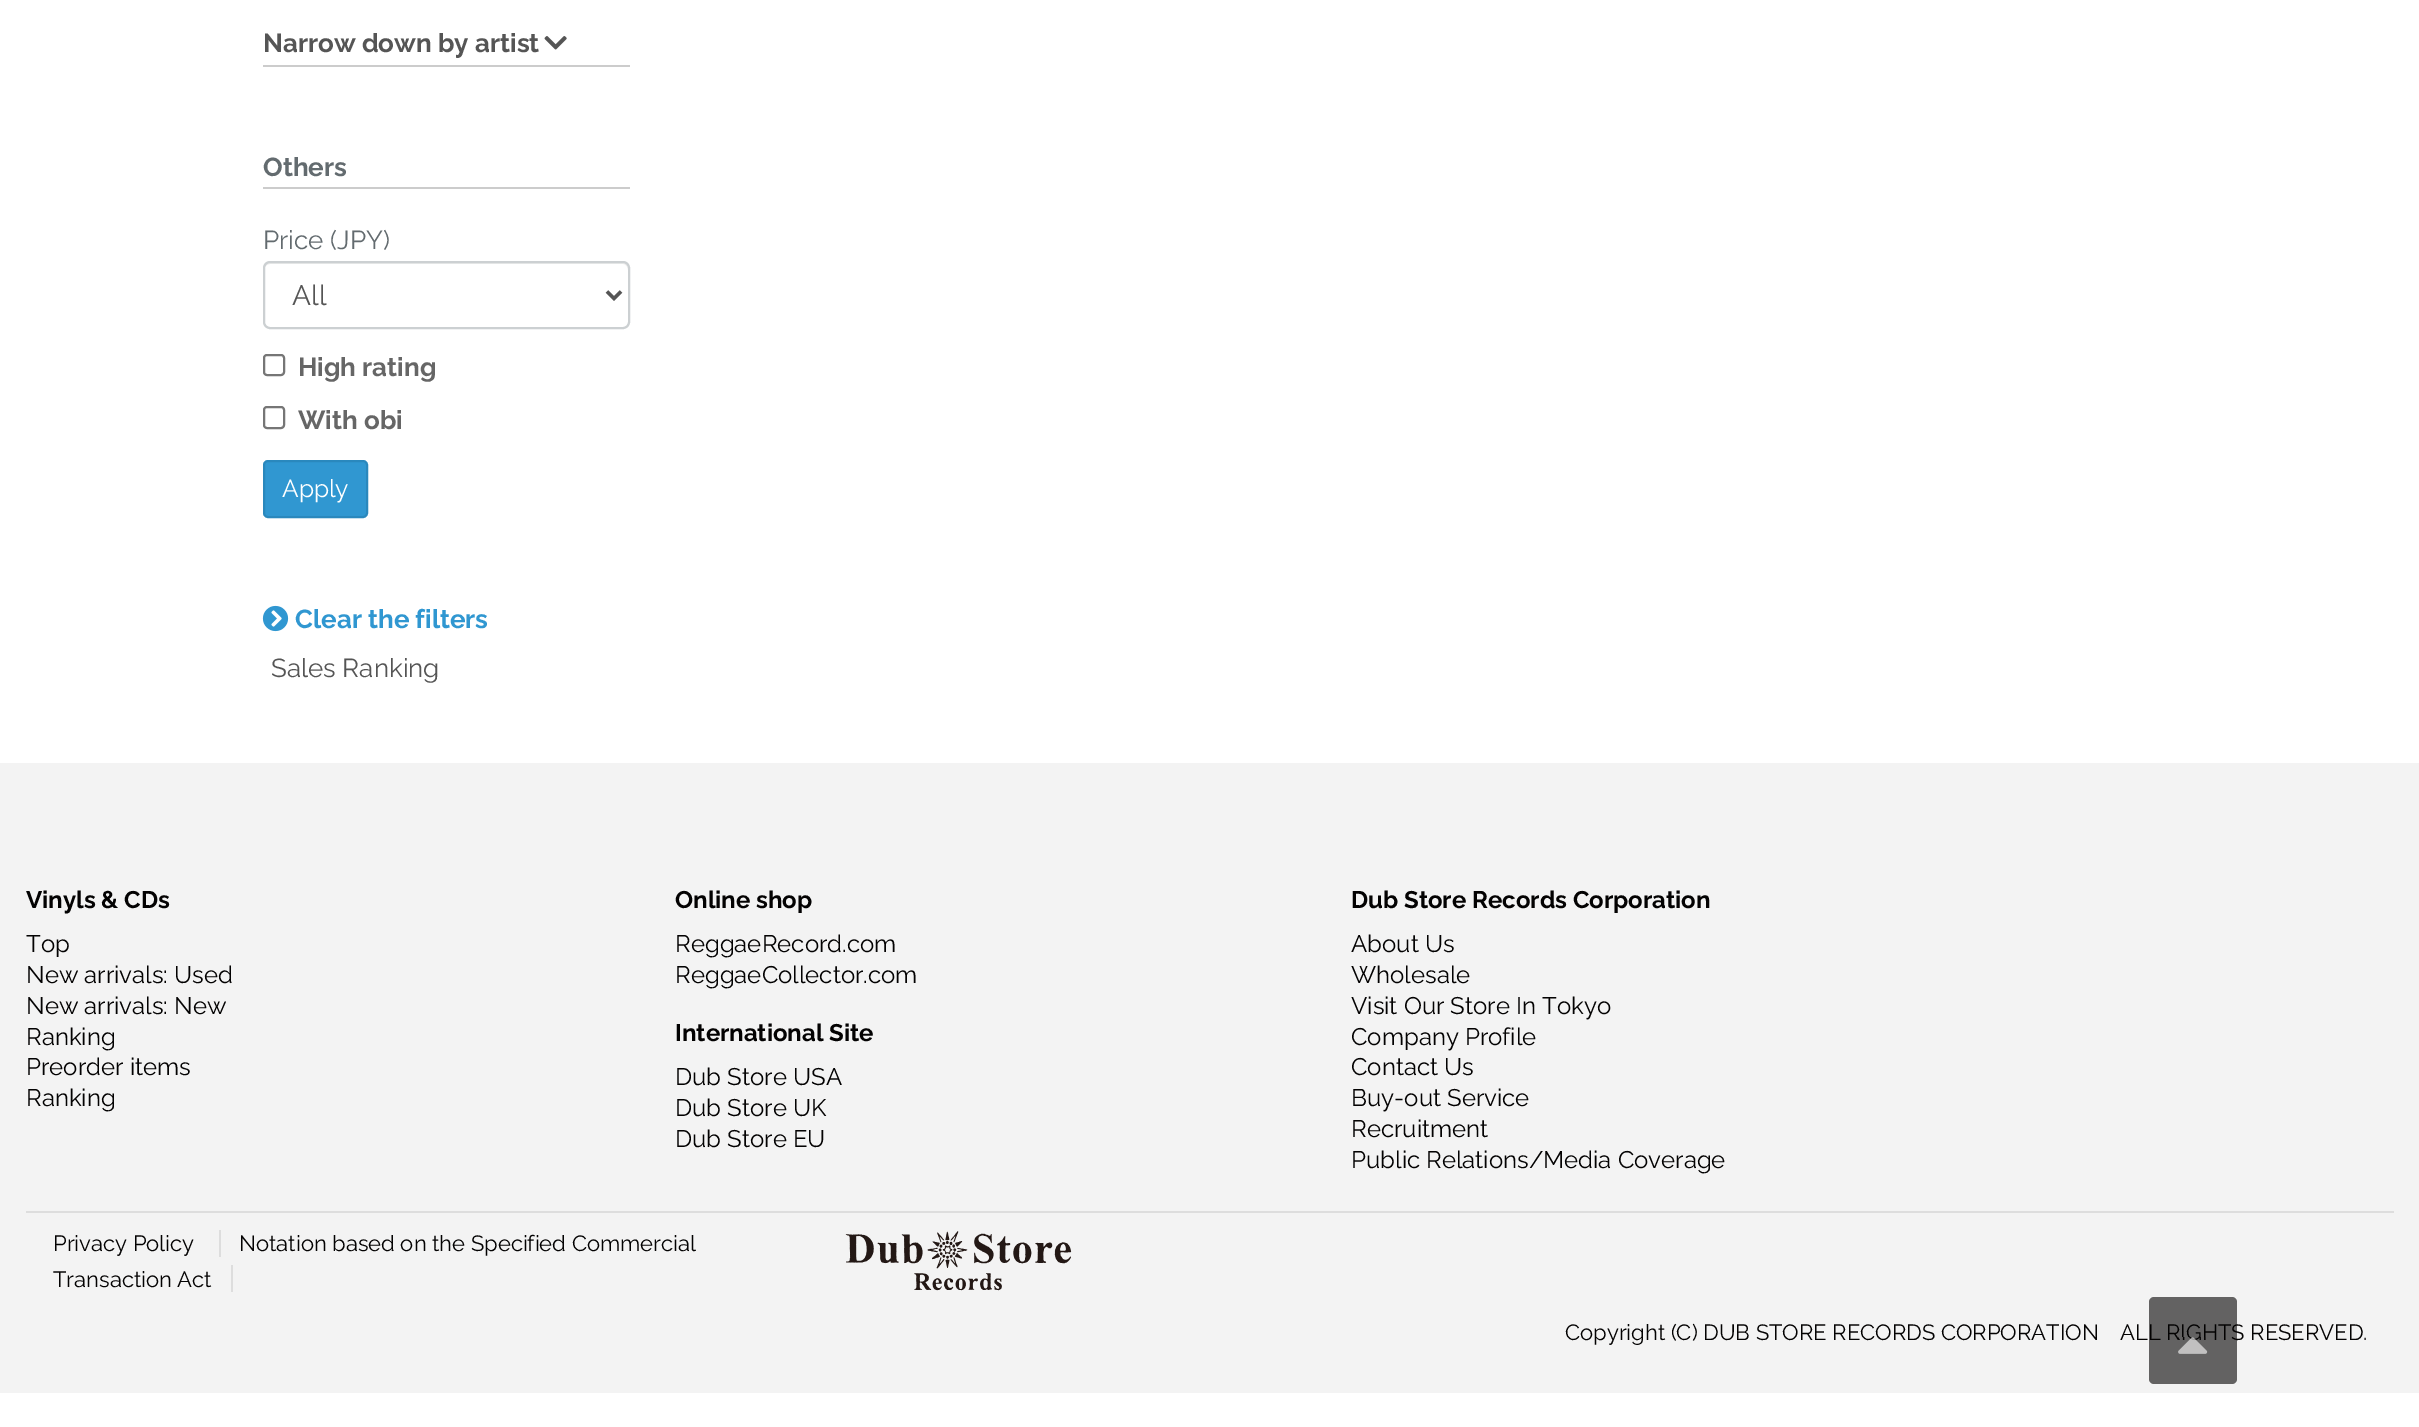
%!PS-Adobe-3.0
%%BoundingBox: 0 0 2419 1427
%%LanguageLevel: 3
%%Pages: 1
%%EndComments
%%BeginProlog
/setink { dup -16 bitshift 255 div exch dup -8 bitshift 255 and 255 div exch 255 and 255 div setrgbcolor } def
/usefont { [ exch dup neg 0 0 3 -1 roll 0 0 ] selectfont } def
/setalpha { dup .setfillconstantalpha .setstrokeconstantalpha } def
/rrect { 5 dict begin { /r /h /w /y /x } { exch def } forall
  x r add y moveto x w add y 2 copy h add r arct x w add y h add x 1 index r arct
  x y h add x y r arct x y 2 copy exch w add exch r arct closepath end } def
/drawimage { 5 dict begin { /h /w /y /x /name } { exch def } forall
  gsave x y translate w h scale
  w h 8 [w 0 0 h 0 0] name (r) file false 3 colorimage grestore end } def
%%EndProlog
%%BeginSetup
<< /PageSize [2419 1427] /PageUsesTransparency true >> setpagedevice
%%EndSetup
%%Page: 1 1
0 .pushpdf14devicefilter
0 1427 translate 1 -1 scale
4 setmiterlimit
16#FFFFFF setink
0 0 2419 1427 rectfill
16#CCCCCC setink
263 65 367 2 rectfill
/Raleway-Bold 26 usefont
16#555555 setink
263 52 moveto (Narrow down by artist) show
(img1.raw) 544 36 23 14 drawimage
16#CCCCCC setink
263 187 367 2 rectfill
16#636B6F setink
263 176 moveto (Others) show
/Raleway-Regular 26 usefont
263 249 moveto (Price \(JPY\)) show
16#ECECEC setink
270 264 moveto 623 264 lineto 626 264 628 267 628 270 curveto 628 267 627 263 623 263 curveto 269 263 lineto 265 263 264 267 264 270 curveto 264 267 267 264 270 264 curveto closepath fill
16#CCD0D2 setink
2 setlinewidth
264 262 365 66 6 rrect stroke
16#555555 setink
3.5 setlinewidth
607 291.5 moveto 614 298.5 lineto 621 291.5 lineto stroke
/Raleway-Regular 28 usefont
292 305 moveto (All) show
16#767676 setink
2 setlinewidth
264 355 20 20 3 rrect stroke
/Raleway-Bold 26 usefont
16#666666 setink
298 376 moveto (High rating) show
16#767676 setink
264 407 20 21 3 rrect stroke
16#666666 setink
298 429 moveto (With obi) show
16#3097D1 setink
264 461 103 56 4 rrect gsave fill grestore
16#2A88BD setink
stroke
/Raleway-Regular 24.5 usefont
16#FFFFFF setink
282 497 moveto (Apply) show
(img2.raw) 262 605 27 27 drawimage
/Raleway-Bold 26 usefont
16#3097D1 setink
295 628 moveto (Clear the filters) show
/Raleway-Regular 26 usefont
16#555555 setink
271 677 moveto (Sales Ranking) show
16#F3F3F3 setink
0 763 2419 630 rectfill
/Raleway-Bold 24 usefont
16#030202 setink
26 908 moveto (Vinyls & CDs) show
/Raleway-Regular 24 usefont
[
    [(Top) 26 952]
    [(New arrivals: Used) 26 983]
    [(New arrivals: New) 26 1014]
    [(Ranking) 26 1045]
    [(Preorder items) 26 1075]
    [(Ranking) 26 1106]
] { aload pop moveto show } forall
/Raleway-Bold 24 usefont
675 908 moveto (Online shop) show
/Raleway-Regular 24 usefont
675 952 moveto (ReggaeRecord.com) show
675 983 moveto (ReggaeCollector.com) show
/Raleway-Bold 24 usefont
675 1041 moveto (International Site) show
/Raleway-Regular 24 usefont
[
    [(Dub Store USA) 675 1085]
    [(Dub Store UK) 675 1116]
    [(Dub Store EU) 675 1147]
] { aload pop moveto show } forall
/Raleway-Bold 24 usefont
1351 908 moveto (Dub Store Records Corporation) show
/Raleway-Regular 24 usefont
[
    [(About Us) 1351 952]
    [(Wholesale) 1351 983]
    [(Visit Our Store In Tokyo) 1351 1014]
    [(Company Profile) 1351 1045]
    [(Contact Us) 1351 1075]
    [(Buy-out Service) 1351 1106]
    [(Recruitment) 1351 1137]
    [(Public Relations/Media Coverage) 1351 1168]
] { aload pop moveto show } forall
16#DDDDDD setink
26 1211 2368 2 rectfill
/Raleway-Regular 22 usefont
16#030202 setink
53 1251 moveto (Privacy Policy) show
16#DDDDDD setink
219 1230 2 27 rectfill
16#030202 setink
239 1251 moveto (Notation based on the Specified Commercial) show
53 1287 moveto (Transaction Act) show
16#DDDDDD setink
231 1265 2 27 rectfill
(img3.raw) 845 1231 227 60 drawimage
16#030202 setink
1565 1340 moveto (Copyright \(C\) DUB STORE RECORDS CORPORATION) show
2120 1340 moveto (ALL RIGHTS RESERVED.) show
0.6 setalpha
2149 1297 88 87 5 rrect fill
1 setalpha
(img4.raw) 2178 1337 30 17 drawimage
.poppdf14devicefilter showpage
%%EOF
